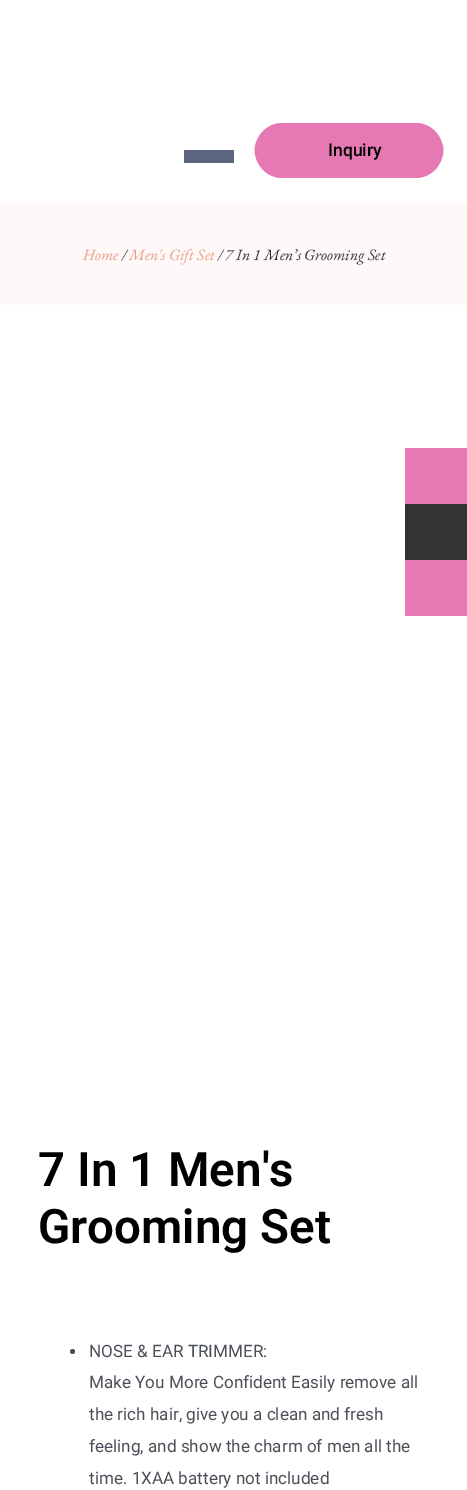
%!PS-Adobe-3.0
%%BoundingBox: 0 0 467 1490
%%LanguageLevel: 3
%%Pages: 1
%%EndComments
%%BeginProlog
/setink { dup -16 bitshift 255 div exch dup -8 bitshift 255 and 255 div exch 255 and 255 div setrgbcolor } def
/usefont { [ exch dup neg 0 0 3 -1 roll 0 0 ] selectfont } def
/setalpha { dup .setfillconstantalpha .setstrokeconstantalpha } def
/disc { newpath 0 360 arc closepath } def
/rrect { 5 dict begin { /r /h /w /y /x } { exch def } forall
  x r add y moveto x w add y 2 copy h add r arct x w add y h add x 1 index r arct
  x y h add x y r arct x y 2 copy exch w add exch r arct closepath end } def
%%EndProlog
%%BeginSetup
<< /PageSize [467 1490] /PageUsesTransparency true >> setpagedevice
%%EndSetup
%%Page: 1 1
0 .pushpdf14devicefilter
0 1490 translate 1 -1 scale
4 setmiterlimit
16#FFFFFF setink
0 0 467 1490 rectfill
16#5C6680 setink
184 150 50 13 rectfill
16#E678B4 setink
255 123 188 55 27.5 rrect fill
0.4 setalpha
296 124 moveto 402 124 lineto 425 124 444 136 444 150 curveto 444 165 425 177 402 177 curveto 296 177 lineto 273 177 254 165 254 150 curveto 254 136 273 124 296 124 curveto closepath fill
/Roboto-Medium 17.5 usefont
1 setalpha
16#000000 setink
328 156 moveto (Inquiry) show
16#FFF8F8 setink
0 203 467 102 rectfill
/EBGaramond-Italic 15.75 usefont
16#E69E86 setink
83 260 moveto (Home) show
16#333333 setink
122 260 moveto (/) show
16#E69E86 setink
129 260 moveto (Men's Gift Set) show
16#333333 setink
218 260 moveto (/ 7 In 1 Men’s Grooming Set) show
/Roboto-SemiBold 47.5 usefont
16#000000 setink
38 1186 moveto (7 In 1 Men's) show
38 1243 moveto (Grooming Set) show
16#4B4F58 setink
72.5 1351.5 2.5 disc fill
/Roboto-Regular 17.1 usefont
[
    [(NOSE & EAR TRIMMER:) 89 1357]
    [(Make You More Confident Easily remove all) 89 1388]
    [(the rich hair, give you a clean and fresh) 89 1420]
    [(feeling, and show the charm of men all the) 89 1452]
    [(time. 1XAA battery not included) 89 1484]
] { aload pop moveto show } forall
[
    [405 448 62 56 16#E678B4]
    [405 504 62 56 16#333333]
    [405 560 62 56 16#E678B4]
] { aload pop setink rectfill } forall
.poppdf14devicefilter showpage
%%EOF
